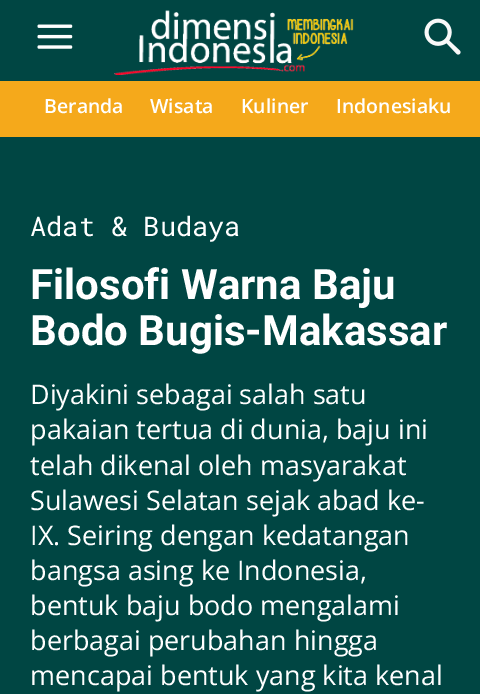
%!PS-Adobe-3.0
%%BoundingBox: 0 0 480 694
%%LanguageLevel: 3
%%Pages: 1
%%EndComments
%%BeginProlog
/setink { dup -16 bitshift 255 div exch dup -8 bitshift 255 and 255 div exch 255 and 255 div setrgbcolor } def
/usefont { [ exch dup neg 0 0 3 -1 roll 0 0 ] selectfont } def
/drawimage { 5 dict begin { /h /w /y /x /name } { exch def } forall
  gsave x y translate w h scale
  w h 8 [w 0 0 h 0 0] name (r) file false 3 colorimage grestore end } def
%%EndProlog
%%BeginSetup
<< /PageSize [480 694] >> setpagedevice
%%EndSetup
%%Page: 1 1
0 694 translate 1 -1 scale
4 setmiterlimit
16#004643 setink
0 0 480 694 rectfill
(img1.raw) 37 24 36 25 drawimage
(img2.raw) 114 10 240 65 drawimage
(img3.raw) 424 18 37 37 drawimage
16#F5A91B setink
0 81 480 56 rectfill
/OpenSans-SemiBold 19.5 usefont
16#FFFFFF setink
[
    [(Beranda) 44 113]
    [(Wisata) 150 113]
    [(Kuliner) 241 113]
    [(Indonesiaku) 336 113]
] { aload pop moveto show } forall
/RobotoMono-Regular 27 usefont
30 236 moveto (Adat & Budaya) show
/Roboto-Bold 42 usefont
30 299 moveto (Filosofi Warna Baju) show
30 345 moveto (Bodo Bugis-Makassar) show
/OpenSans-Regular 27 usefont
[
    [(Diyakini sebagai salah satu) 30 404]
    [(pakaian tertua di dunia, baju ini) 30 439]
    [(telah dikenal oleh masyarakat) 30 475]
    [(Sulawesi Selatan sejak abad ke-) 30 510]
    [(IX. Seiring dengan kedatangan) 30 545]
    [(bangsa asing ke Indonesia,) 30 580]
    [(bentuk baju bodo mengalami) 30 615]
    [(berbagai perubahan hingga) 30 650]
    [(mencapai bentuk yang kita kenal) 30 685]
] { aload pop moveto show } forall
showpage
%%EOF
